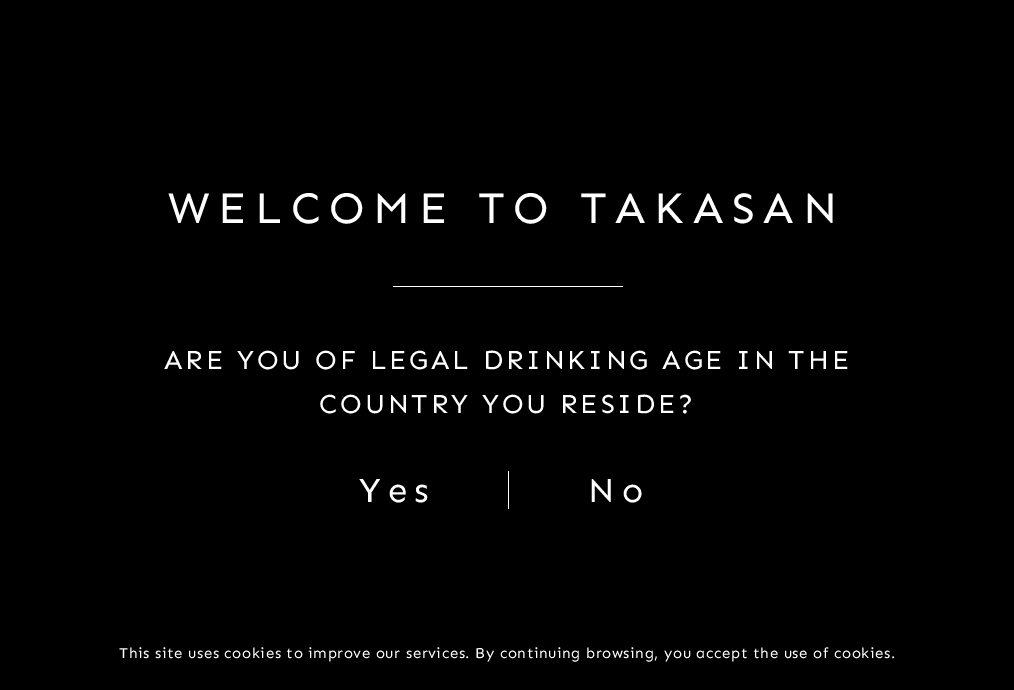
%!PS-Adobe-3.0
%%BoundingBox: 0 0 1014 690
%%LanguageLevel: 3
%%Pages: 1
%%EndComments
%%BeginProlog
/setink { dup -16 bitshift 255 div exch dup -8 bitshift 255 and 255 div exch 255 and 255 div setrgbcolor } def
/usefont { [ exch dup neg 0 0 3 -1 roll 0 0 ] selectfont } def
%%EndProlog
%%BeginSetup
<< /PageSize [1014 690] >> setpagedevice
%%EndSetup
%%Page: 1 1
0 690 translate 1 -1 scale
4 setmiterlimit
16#000000 setink
0 0 1014 690 rectfill
/Sen-Regular 45 usefont
16#FFFFFF setink
168 223 moveto 8.75 0 (WELCOME TO TAKASAN) ashow
393 286 230 1 rectfill
/Sen-Regular 27.5 usefont
164 369 moveto 2.9 0 (ARE YOU OF LEGAL DRINKING AGE IN THE) ashow
319 413 moveto 2.9 0 (COUNTRY YOU RESIDE?) ashow
/Sen-Regular 35 usefont
359 502 moveto 7 0 (Yes) ashow
508 471 1 38 rectfill
588 502 moveto 7 0 (No) ashow
/Sen-Regular 15 usefont
119 658 moveto 0.6 0 (This site uses cookies to improve our services. By continuing browsing, you accept the use of cookies.) ashow
showpage
%%EOF
